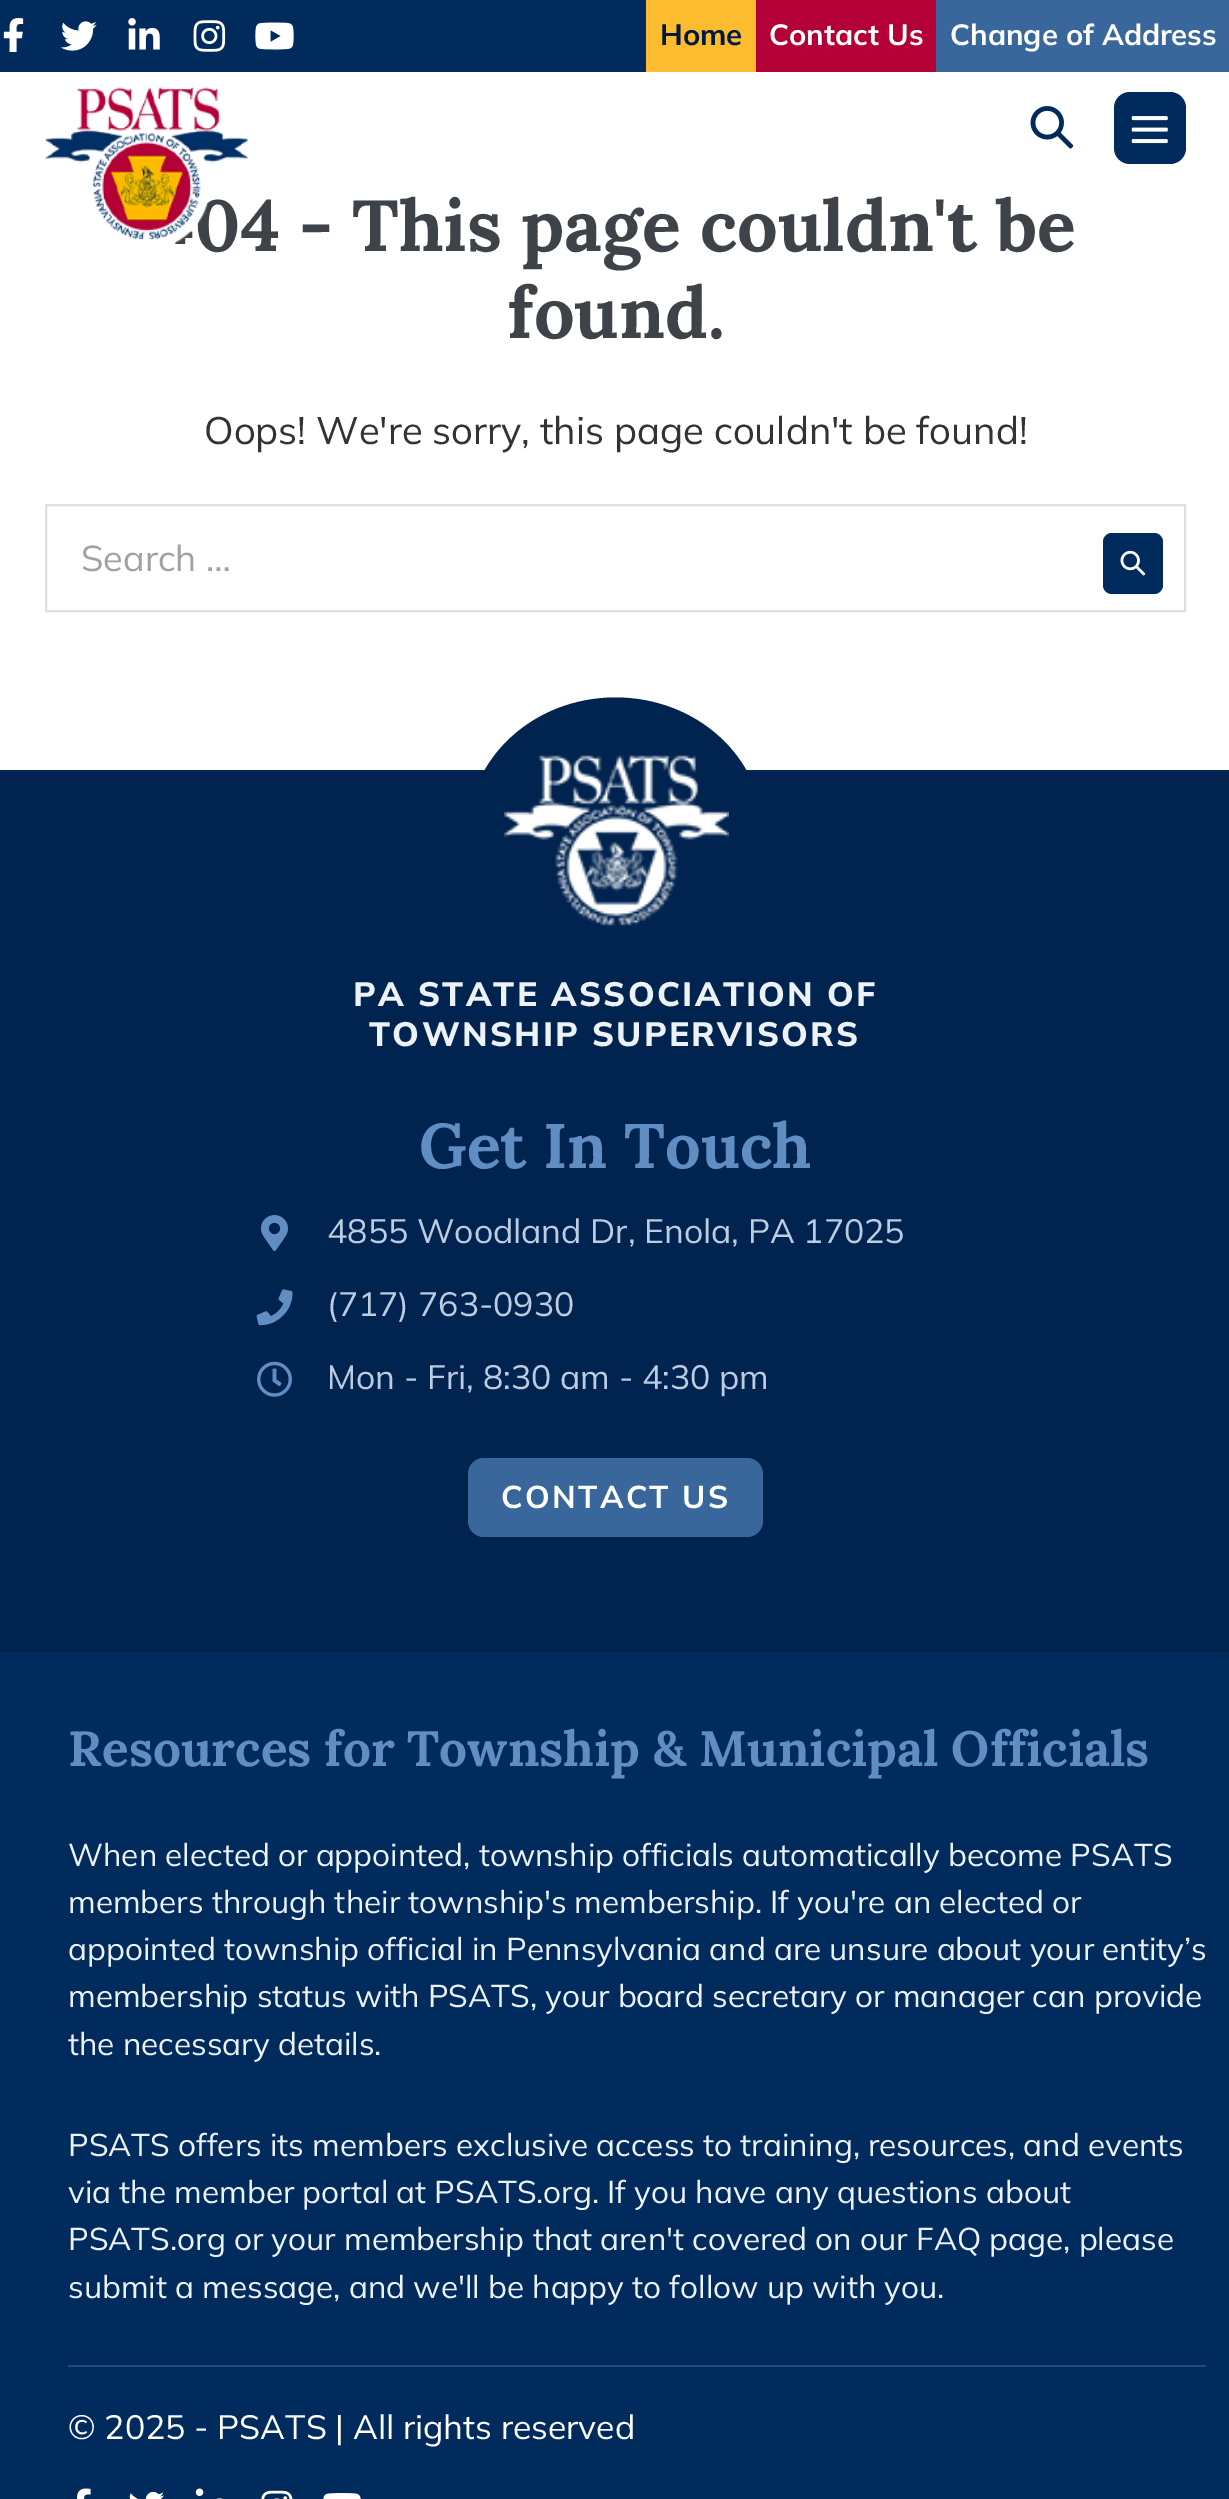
%!PS-Adobe-3.0
%%BoundingBox: 0 0 1229 2499
%%LanguageLevel: 3
%%Pages: 1
%%EndComments
%%BeginProlog
/setink { dup -16 bitshift 255 div exch dup -8 bitshift 255 and 255 div exch 255 and 255 div setrgbcolor } def
/usefont { [ exch dup neg 0 0 3 -1 roll 0 0 ] selectfont } def
/rrect { 5 dict begin { /r /h /w /y /x } { exch def } forall
  x r add y moveto x w add y 2 copy h add r arct x w add y h add x 1 index r arct
  x y h add x y r arct x y 2 copy exch w add exch r arct closepath end } def
/drawimage { 5 dict begin { /h /w /y /x /name } { exch def } forall
  gsave x y translate w h scale
  w h 8 [w 0 0 h 0 0] name (r) file false 3 colorimage grestore end } def
%%EndProlog
%%BeginSetup
<< /PageSize [1229 2499] >> setpagedevice
%%EndSetup
%%Page: 1 1
0 2499 translate 1 -1 scale
4 setmiterlimit
16#FFFFFF setink
0 0 1229 2499 rectfill
16#002B5C setink
0 0 646 72 rectfill
(img1.raw) 3 18 21 34 drawimage
(img2.raw) 61 21 36 30 drawimage
(img3.raw) 128 18 32 32 drawimage
(img4.raw) 193 20 33 32 drawimage
(img5.raw) 255 22 39 28 drawimage
16#FDBB30 setink
646 0 110 72 rectfill
/Mulish-Bold 29.25 usefont
16#00193E setink
660 45 moveto (Home) show
16#B30037 setink
756 0 180 72 rectfill
16#FFFFFF setink
769 45 moveto (Contact Us) show
16#39679B setink
936 0 293 72 rectfill
16#FFFFFF setink
950 45 moveto (Change of Address) show
/Lora-Bold 72 usefont
16#3E4349 setink
195 251 moveto (04 - This page couldn't be) show
(img6.raw) 45 87 203 157 drawimage
(img7.raw) 1030 106 44 43 drawimage
16#002B5C setink
1114 92 72 72 16 rrect fill
(img8.raw) 1131 116 37 28 drawimage
16#3E4349 setink
507 338 moveto (found.) show
/Mulish-Regular 38.25 usefont
16#333333 setink
204 444 moveto (Oops! We're sorry, this page couldn't be found!) show
16#DEDEE5 setink
2 setlinewidth
46 505 1139 106 rectstroke
/Mulish-Regular 36 usefont
16#9FA1A4 setink
81 571 moveto (Search …) show
16#002B5C setink
1103 533 60 61 9 rrect fill
(img9.raw) 1120 550 26 26 drawimage
0 770 1229 2 rectfill
16#00234F setink
0 772 1229 880 rectfill
615.5 697.5 moveto 697 697.5 763 758 763 832.5 curveto 763 907 697 967.5 615.5 967.5 curveto 534 967.5 468 907 468 832.5 curveto 468 758 534 697.5 615.5 697.5 curveto closepath fill
(img10.raw) 504 755 225 171 drawimage
/Mulish-ExtraBold 33.75 usefont
16#EDF2F7 setink
353 1006 moveto 2.25 0 (PA STATE ASSOCIATION OF) ashow
369 1046 moveto 2.25 0 (TOWNSHIP SUPERVISORS) ashow
/Lora-Bold 63 usefont
16#608EC3 setink
419 1168 moveto (Get In Touch) show
(img11.raw) 261 1215 27 36 drawimage
/Mulish-Regular 33.75 usefont
16#BDCDE1 setink
327 1243 moveto (4855 Woodland Dr, Enola, PA 17025) show
(img12.raw) 256 1289 37 37 drawimage
327 1316 moveto (\(717\) 763-0930) show
(img13.raw) 257 1361 35 36 drawimage
327 1389 moveto (Mon - Fri, 8:30 am - 4:30 pm) show
16#39679B setink
468 1458 295 79 16 rrect fill
/Mulish-Bold 31.5 usefont
16#FFFFFF setink
501 1508 moveto 2.25 0 (CONTACT US) ashow
16#002B5C setink
0 1652 1229 847 rectfill
/Lora-Bold 49.5 usefont
16#608EC3 setink
68 1766 moveto (Resources for Township & Municipal Officials) show
/Mulish-Regular 31.5 usefont
16#EDF2F7 setink
[
    [(When elected or appointed, township officials automatically become PSATS) 68 1866]
    [(members through their township's membership. If you're an elected or) 68 1913]
    [(appointed township official in Pennsylvania and are unsure about your entity’s) 68 1960]
    [(membership status with PSATS, your board secretary or manager can provide) 68 2007]
    [(the necessary details.) 68 2055]
    [(PSATS offers its members exclusive access to training, resources, and events) 68 2156]
    [(via the member portal at PSATS.org. If you have any questions about) 68 2203]
    [(PSATS.org or your membership that aren't covered on our FAQ page, please) 68 2250]
    [(submit a message, and we'll be happy to follow up with you.) 68 2298]
] { aload pop moveto show } forall
16#244A76 setink
68 2365 1138 2 rectfill
/Mulish-Regular 33.75 usefont
16#FFFFFF setink
68 2439 moveto (© 2025 - PSATS | All rights reserved) show
(img14.raw) 77 2488 14 11 drawimage
(img15.raw) 129 2491 36 8 drawimage
(img16.raw) 195 2488 28 11 drawimage
(img17.raw) 261 2490 32 9 drawimage
(img18.raw) 323 2493 38 6 drawimage
showpage
%%EOF
